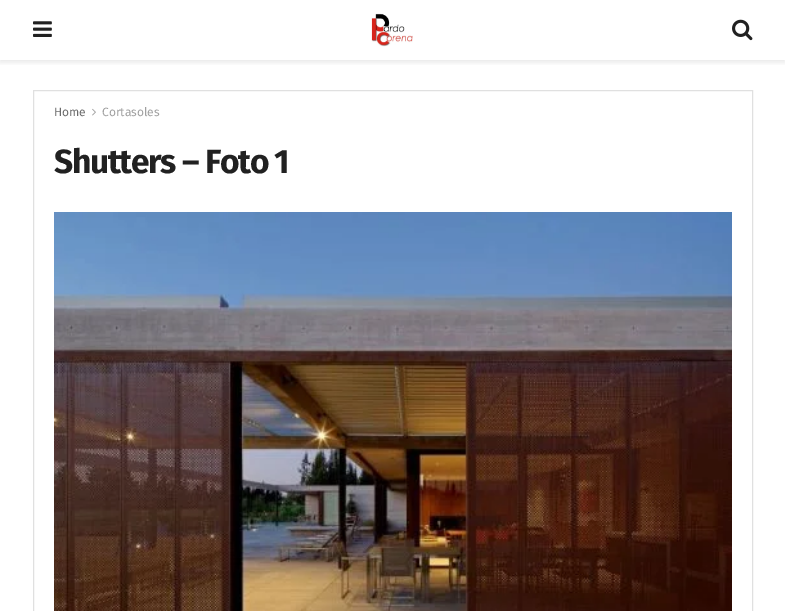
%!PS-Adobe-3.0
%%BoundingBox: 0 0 785 611
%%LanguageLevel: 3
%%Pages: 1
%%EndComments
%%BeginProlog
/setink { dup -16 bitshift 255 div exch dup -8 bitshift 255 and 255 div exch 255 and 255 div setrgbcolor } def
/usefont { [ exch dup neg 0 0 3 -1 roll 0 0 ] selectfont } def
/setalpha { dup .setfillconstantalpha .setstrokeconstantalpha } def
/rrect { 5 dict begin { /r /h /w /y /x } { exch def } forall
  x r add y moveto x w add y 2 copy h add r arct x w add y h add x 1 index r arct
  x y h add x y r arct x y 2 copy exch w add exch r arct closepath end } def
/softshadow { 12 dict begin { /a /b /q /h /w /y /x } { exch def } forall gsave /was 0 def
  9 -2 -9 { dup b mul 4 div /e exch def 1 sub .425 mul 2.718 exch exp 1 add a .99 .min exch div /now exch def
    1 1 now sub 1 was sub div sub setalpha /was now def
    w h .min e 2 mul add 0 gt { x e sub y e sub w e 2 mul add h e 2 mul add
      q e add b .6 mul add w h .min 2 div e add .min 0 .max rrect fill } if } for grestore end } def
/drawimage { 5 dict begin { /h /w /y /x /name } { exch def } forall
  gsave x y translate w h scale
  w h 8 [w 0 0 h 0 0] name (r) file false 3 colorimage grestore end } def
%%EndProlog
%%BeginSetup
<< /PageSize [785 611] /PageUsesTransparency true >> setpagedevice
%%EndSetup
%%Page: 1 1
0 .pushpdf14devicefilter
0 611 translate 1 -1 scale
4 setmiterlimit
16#FFFFFF setink
0 0 785 611 rectfill
gsave
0 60 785 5 rectclip
16#000000 setink
0 2 785 60 0 3 0.1 softshadow
grestore
(img1.raw) 33 21 19 16 drawimage
(img2.raw) 371 13 42 34 drawimage
(img3.raw) 732 19 21 22 drawimage
16#E0E0E0 setink
33.5 90.5 719 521 rectstroke
/FiraSans-Regular 12 usefont
16#6B6B6B setink
54 116 moveto (Home) show
(img4.raw) 92 108 4 8 drawimage
16#A0A0A0 setink
102 116 moveto (Cortasoles) show
/FiraSans-Bold 33.5 usefont
16#212121 setink
54 173 moveto -1.3 0 (Shutters – Foto 1) ashow
(img5.raw) 54 212 678 399 drawimage
.poppdf14devicefilter showpage
%%EOF
